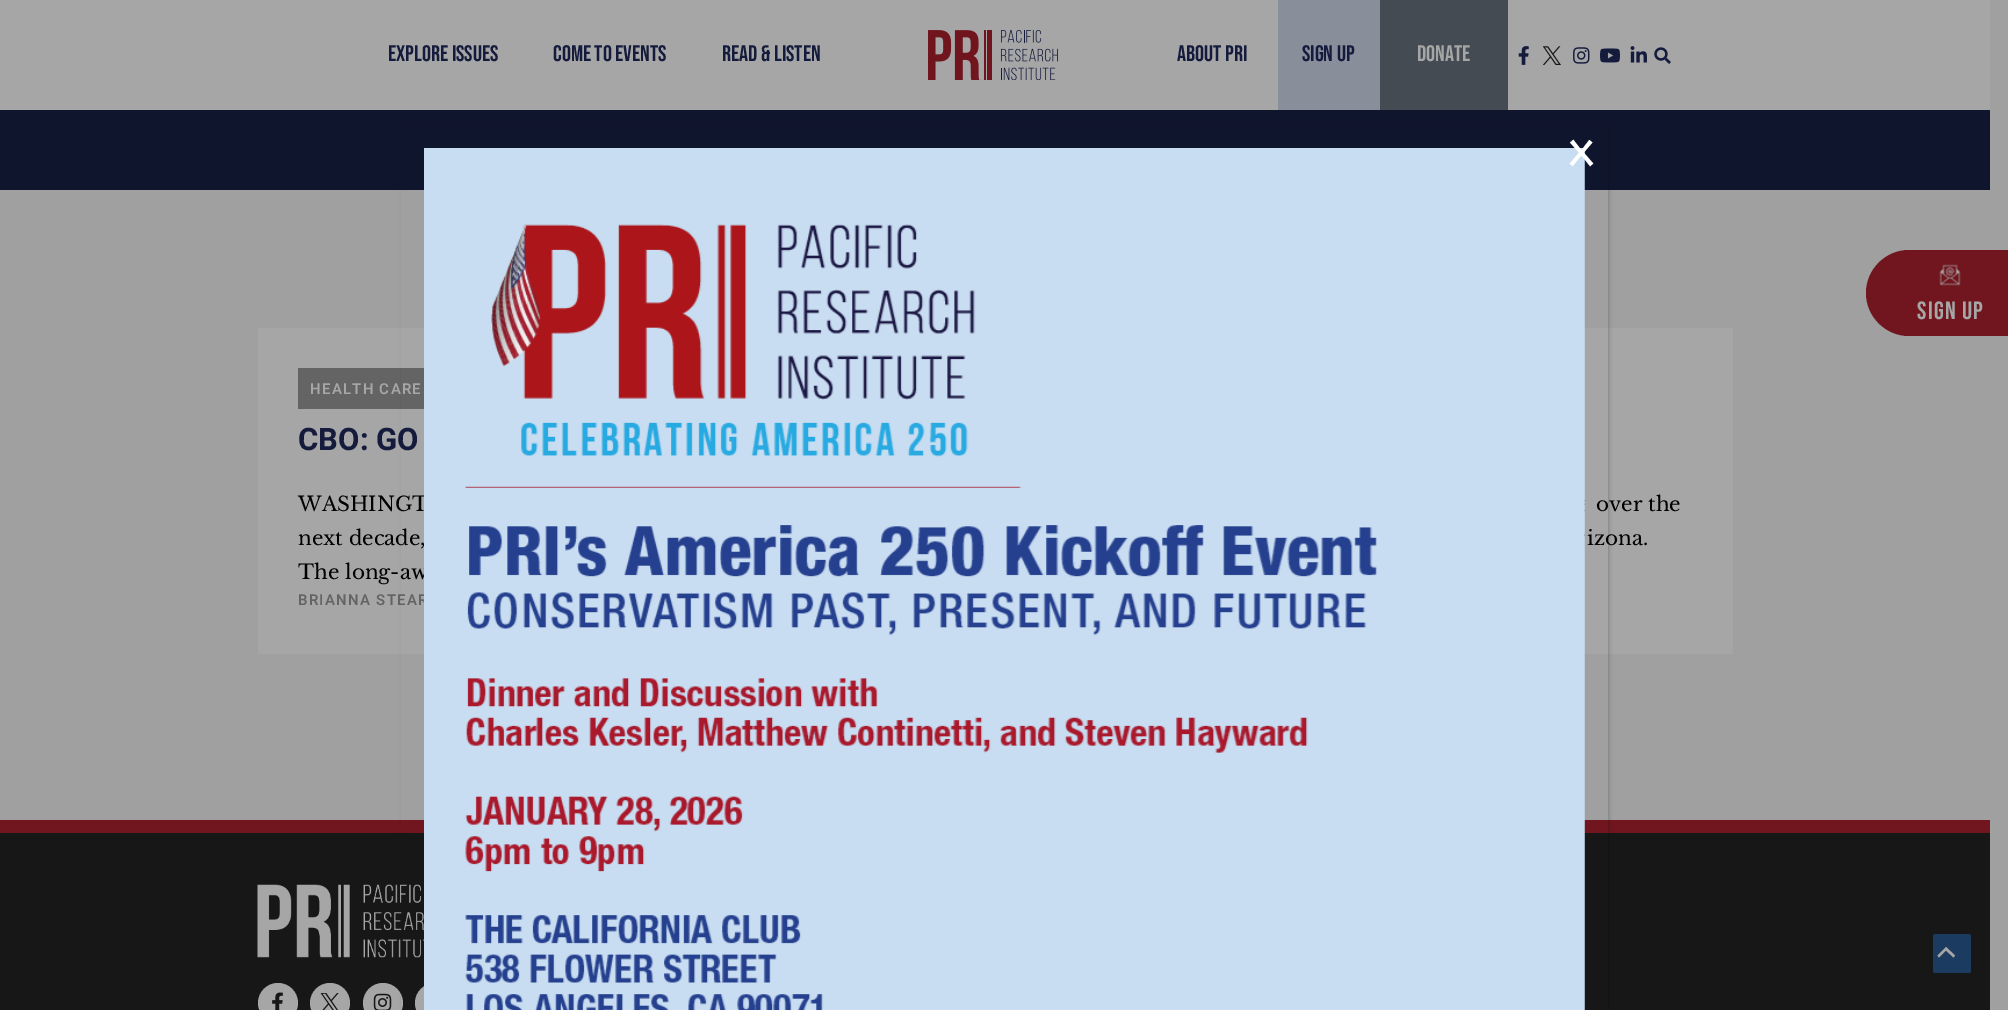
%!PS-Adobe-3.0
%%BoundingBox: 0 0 2008 1010
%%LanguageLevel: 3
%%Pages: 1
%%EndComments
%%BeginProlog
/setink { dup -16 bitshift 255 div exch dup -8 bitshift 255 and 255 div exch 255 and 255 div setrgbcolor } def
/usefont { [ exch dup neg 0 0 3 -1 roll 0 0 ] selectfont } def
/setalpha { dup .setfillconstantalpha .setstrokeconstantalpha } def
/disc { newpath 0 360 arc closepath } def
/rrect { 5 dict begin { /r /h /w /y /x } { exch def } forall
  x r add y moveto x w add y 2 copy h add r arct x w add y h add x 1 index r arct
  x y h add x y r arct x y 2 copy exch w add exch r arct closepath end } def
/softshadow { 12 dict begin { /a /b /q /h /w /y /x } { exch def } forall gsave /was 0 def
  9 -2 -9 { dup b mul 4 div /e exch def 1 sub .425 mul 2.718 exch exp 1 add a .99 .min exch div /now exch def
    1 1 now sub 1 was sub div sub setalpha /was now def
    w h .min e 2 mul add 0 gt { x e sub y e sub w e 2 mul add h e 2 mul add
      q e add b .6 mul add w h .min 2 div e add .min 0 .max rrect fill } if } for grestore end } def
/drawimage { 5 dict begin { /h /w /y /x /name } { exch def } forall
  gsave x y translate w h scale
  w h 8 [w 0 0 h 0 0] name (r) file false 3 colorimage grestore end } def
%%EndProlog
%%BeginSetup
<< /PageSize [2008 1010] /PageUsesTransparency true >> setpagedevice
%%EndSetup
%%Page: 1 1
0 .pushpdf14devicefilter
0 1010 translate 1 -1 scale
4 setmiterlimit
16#A0A0A0 setink
0 0 2008 1010 rectfill
16#A6A6A6 setink
0 0 1990 110 rectfill
/BebasNeue-Regular 22.5 usefont
16#141B3C setink
[
    [(Explore Issues) 388 61]
    [(Come to Events) 553 61]
    [(Read & Listen) 722 61]
] { aload pop moveto show } forall
(img1.raw) 928 30 130 50 drawimage
1177 61 moveto (About PRI) show
16#898F9A setink
1278 0 102 110 rectfill
16#141B3C setink
1302 61 moveto (Sign Up) show
16#454B52 setink
1380 0 128 110 rectfill
16#A6A6A6 setink
1417 61 moveto (Donate) show
(img2.raw) 1518 46 11 19 drawimage
(img3.raw) 1543 46 18 19 drawimage
(img4.raw) 1573 47 17 17 drawimage
(img5.raw) 1600 48 20 15 drawimage
(img6.raw) 1630 46 17 17 drawimage
(img7.raw) 1654 47 17 17 drawimage
16#71151E setink
1909 250 moveto 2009 250 lineto 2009 336 lineto 1909 336 lineto 1885.5 336 1866 316.5 1866 293 curveto 1866 269.5 1885.5 250 1909 250 curveto closepath fill
(img8.raw) 1939 264 22 22 drawimage
/BebasNeue-Regular 25 usefont
16#A6A6A6 setink
1917 319 moveto 1.25 0 (Sign Up) ashow
[
    [0 110 1990 80 16#10152E]
    [258 328 1475 326 16#A6A6A6]
    [298 368 126 41 16#646464]
] { aload pop setink rectfill } forall
/Heebo-SemiBold 15 usefont
16#A6A6A6 setink
310 394 moveto 1.25 0 (HEALTH CARE) ashow
/Heebo-Bold 31 usefont
16#141B3C setink
298 450 moveto (CBO: GO) show
/LibreBaskerville-Regular 20 usefont
16#010101 setink
[
    [(WASHINGT) 298 511]
    [(over the) 1596 511]
    [(next decade,) 298 545]
    [(izona.) 1587 545]
    [(The long-aw) 298 579]
] { aload pop moveto show } forall
/Heebo-SemiBold 15 usefont
16#646464 setink
298 605 moveto 1.25 0 (BRIANNA STEAR) ashow
16#171717 setink
0 833 1990 177 rectfill
16#71151E setink
0 820 1990 13 rectfill
(img9.raw) 257 884 167 74 drawimage
16#A6A6A6 setink
278 1003 20 disc fill
(img10.raw) 272 992 11 18 drawimage
330 1003 20 disc fill
(img11.raw) 320 993 19 17 drawimage
383 1003 20 disc fill
(img12.raw) 373 993 19 17 drawimage
435 1003 20 disc fill
gsave
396 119 moveto 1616 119 lineto 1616 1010 lineto 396 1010 lineto closepath 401 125 moveto 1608 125 lineto 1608 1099 lineto 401 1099 lineto closepath eoclip newpath
16#020202 setink
403 126 1206 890 0 2 0.23 softshadow
grestore
(img13.raw) 424 148 1161 862 drawimage
/ABeeZee-Regular 50 usefont
16#FFFFFF setink
1569 166 moveto (x) show
16#1B3B60 setink
1933 934 38 39 2.5 rrect fill
16#A6A6A6 setink
1955 955.5 moveto 1946 947 lineto 1937.5 955.5 lineto 1939 957.5 lineto 1946 950.5 lineto 1953.5 957.5 lineto closepath fill
.poppdf14devicefilter showpage
%%EOF
